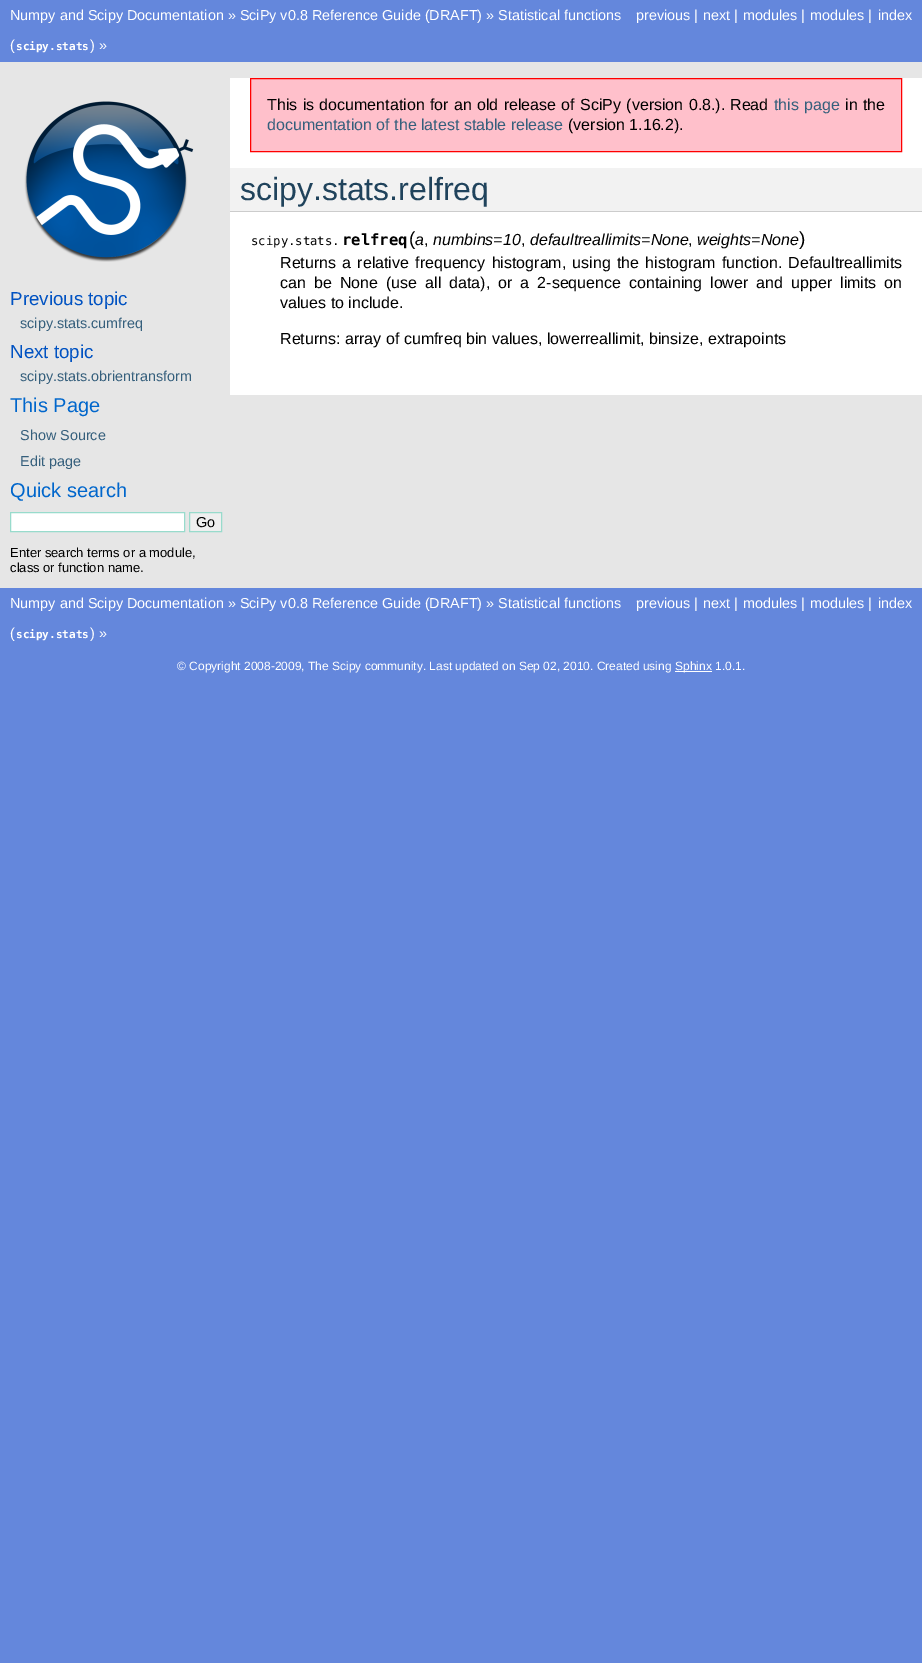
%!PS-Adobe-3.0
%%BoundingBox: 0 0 922 1663
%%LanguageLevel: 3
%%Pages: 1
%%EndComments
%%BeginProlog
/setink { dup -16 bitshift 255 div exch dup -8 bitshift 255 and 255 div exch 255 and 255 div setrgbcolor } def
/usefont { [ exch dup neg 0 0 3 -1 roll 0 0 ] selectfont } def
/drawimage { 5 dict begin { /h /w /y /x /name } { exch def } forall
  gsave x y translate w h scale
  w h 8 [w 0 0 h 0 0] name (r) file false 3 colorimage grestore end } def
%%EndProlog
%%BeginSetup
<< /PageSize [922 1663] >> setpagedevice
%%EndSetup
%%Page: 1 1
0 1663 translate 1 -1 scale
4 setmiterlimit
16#6487DC setink
0 0 922 1663 rectfill
/LiberationSans-Regular 14.4 usefont
16#FFFFFF setink
[
    [(Numpy and Scipy Documentation » SciPy v0.8 Reference Guide \(DRAFT\) » Statistical functions) 10 20]
    [(previous |) 636 20]
    [(next |) 703 20]
    [(modules |) 743 20]
    [(modules |) 810 20]
    [(index) 878 20]
    [(\() 10 50]
] { aload pop moveto show } forall
/DejaVuSansMono-Bold 11 usefont
16 50 moveto (scipy.stats) show
/LiberationSans-Regular 14.4 usefont
90 50 moveto (\) ») show
16#E6E6E6 setink
0 62 922 526 rectfill
16#FFFFFF setink
230 78 692 317 rectfill
16#FFC0CB setink
250.5 78.5 moveto 901.5 78.5 lineto 901.5 151.5 lineto 250.5 151.5 lineto closepath gsave fill grestore
16#FF0000 setink
stroke
/LiberationSans-Regular 16 usefont
16#000000 setink
267 110 moveto 0.9 0 32 (This is documentation for an old release of SciPy \(version 0.8.\).) widthshow
730 110 moveto (Read) show
16#355F7C setink
774 110 moveto 1 0 32 (this page) widthshow
16#000000 setink
845 110 moveto 1 0 32 (in the) widthshow
16#355F7C setink
267 130 moveto (documentation of the latest stable release) show
16#000000 setink
568 130 moveto (\(version 1.16.2\).) show
16#F2F2F2 setink
230 168 692 43 rectfill
16#CCCCCC setink
230 211 692 1 rectfill
/LiberationSans-Regular 32 usefont
16#20435C setink
240 200 moveto (scipy.stats.relfreq) show
/DejaVuSansMono-Regular 12.25 usefont
16#000000 setink
251 245 moveto (scipy.stats.) show
/DejaVuSansMono-Bold 15.5 usefont
342 245 moveto (relfreq) show
/LiberationSans-Regular 19 usefont
409 245 moveto (\() show
/LiberationSans-Italic 16 usefont
415 245 moveto (a) show
/LiberationSans-Regular 16 usefont
424 245 moveto (,) show
/LiberationSans-Italic 16 usefont
433 245 moveto (numbins=10) show
/LiberationSans-Regular 16 usefont
521 245 moveto (,) show
/LiberationSans-Italic 16 usefont
530 245 moveto (defaultreallimits=None) show
/LiberationSans-Regular 16 usefont
688 245 moveto (,) show
/LiberationSans-Italic 16 usefont
697 245 moveto (weights=None) show
/LiberationSans-Regular 19 usefont
799 245 moveto (\)) show
/LiberationSans-Regular 16 usefont
280 268 moveto 1.75 0 32 (Returns a relative frequency histogram, using the histogram function. Defaultreallimits) widthshow
280 288 moveto 3.6 0 32 (can be None \(use all data\), or a 2-sequence containing lower and upper limits on) widthshow
280 308 moveto (values to include.) show
280 344 moveto (Returns: array of cumfreq bin values, lowerreallimit, binsize, extrapoints) show
(img1.raw) 24 101 170 161 drawimage
/LiberationSans-Regular 18.75 usefont
16#0052C2 setink
10 305 moveto (Previous topic) show
/LiberationSans-Regular 14.4 usefont
16#355F7C setink
20 328 moveto (scipy.stats.cumfreq) show
/LiberationSans-Regular 18.75 usefont
16#0052C2 setink
10 358 moveto (Next topic) show
/LiberationSans-Regular 14.4 usefont
16#355F7C setink
20 381 moveto (scipy.stats.obrientransform) show
/LiberationSans-Regular 20 usefont
16#0066CC setink
10 412 moveto (This Page) show
/LiberationSans-Regular 14.4 usefont
16#355F7C setink
20 440 moveto (Show Source) show
20 466 moveto (Edit page) show
/LiberationSans-Regular 20 usefont
16#0066CC setink
10 497 moveto (Quick search) show
16#FFFFFF setink
10.5 512.5 moveto 184.5 512.5 lineto 184.5 531.5 lineto 10.5 531.5 lineto closepath gsave fill grestore
16#98DBCC setink
stroke
16#EFEFEF setink
189.5 512.5 moveto 221.5 512.5 lineto 221.5 531.5 lineto 189.5 531.5 lineto closepath gsave fill grestore
16#98DBCC setink
stroke
/LiberationSans-Regular 14.4 usefont
16#000000 setink
196 527 moveto (Go) show
/LiberationSans-Regular 13 usefont
10 557 moveto (Enter search terms or a module,) show
10 572 moveto (class or function name.) show
/LiberationSans-Regular 14.4 usefont
16#FFFFFF setink
[
    [(Numpy and Scipy Documentation » SciPy v0.8 Reference Guide \(DRAFT\) » Statistical functions) 10 608]
    [(previous |) 636 608]
    [(next |) 703 608]
    [(modules |) 743 608]
    [(modules |) 810 608]
    [(index) 878 608]
    [(\() 10 638]
] { aload pop moveto show } forall
/DejaVuSansMono-Bold 11 usefont
16 638 moveto (scipy.stats) show
/LiberationSans-Regular 14.4 usefont
90 638 moveto (\) ») show
/LiberationSans-Regular 12 usefont
177 670 moveto (© Copyright 2008-2009, The Scipy community. Last updated on Sep 02, 2010. Created using) show
675 671 37 1 rectfill
675 670 moveto (Sphinx 1.0.1.) show
showpage
%%EOF
